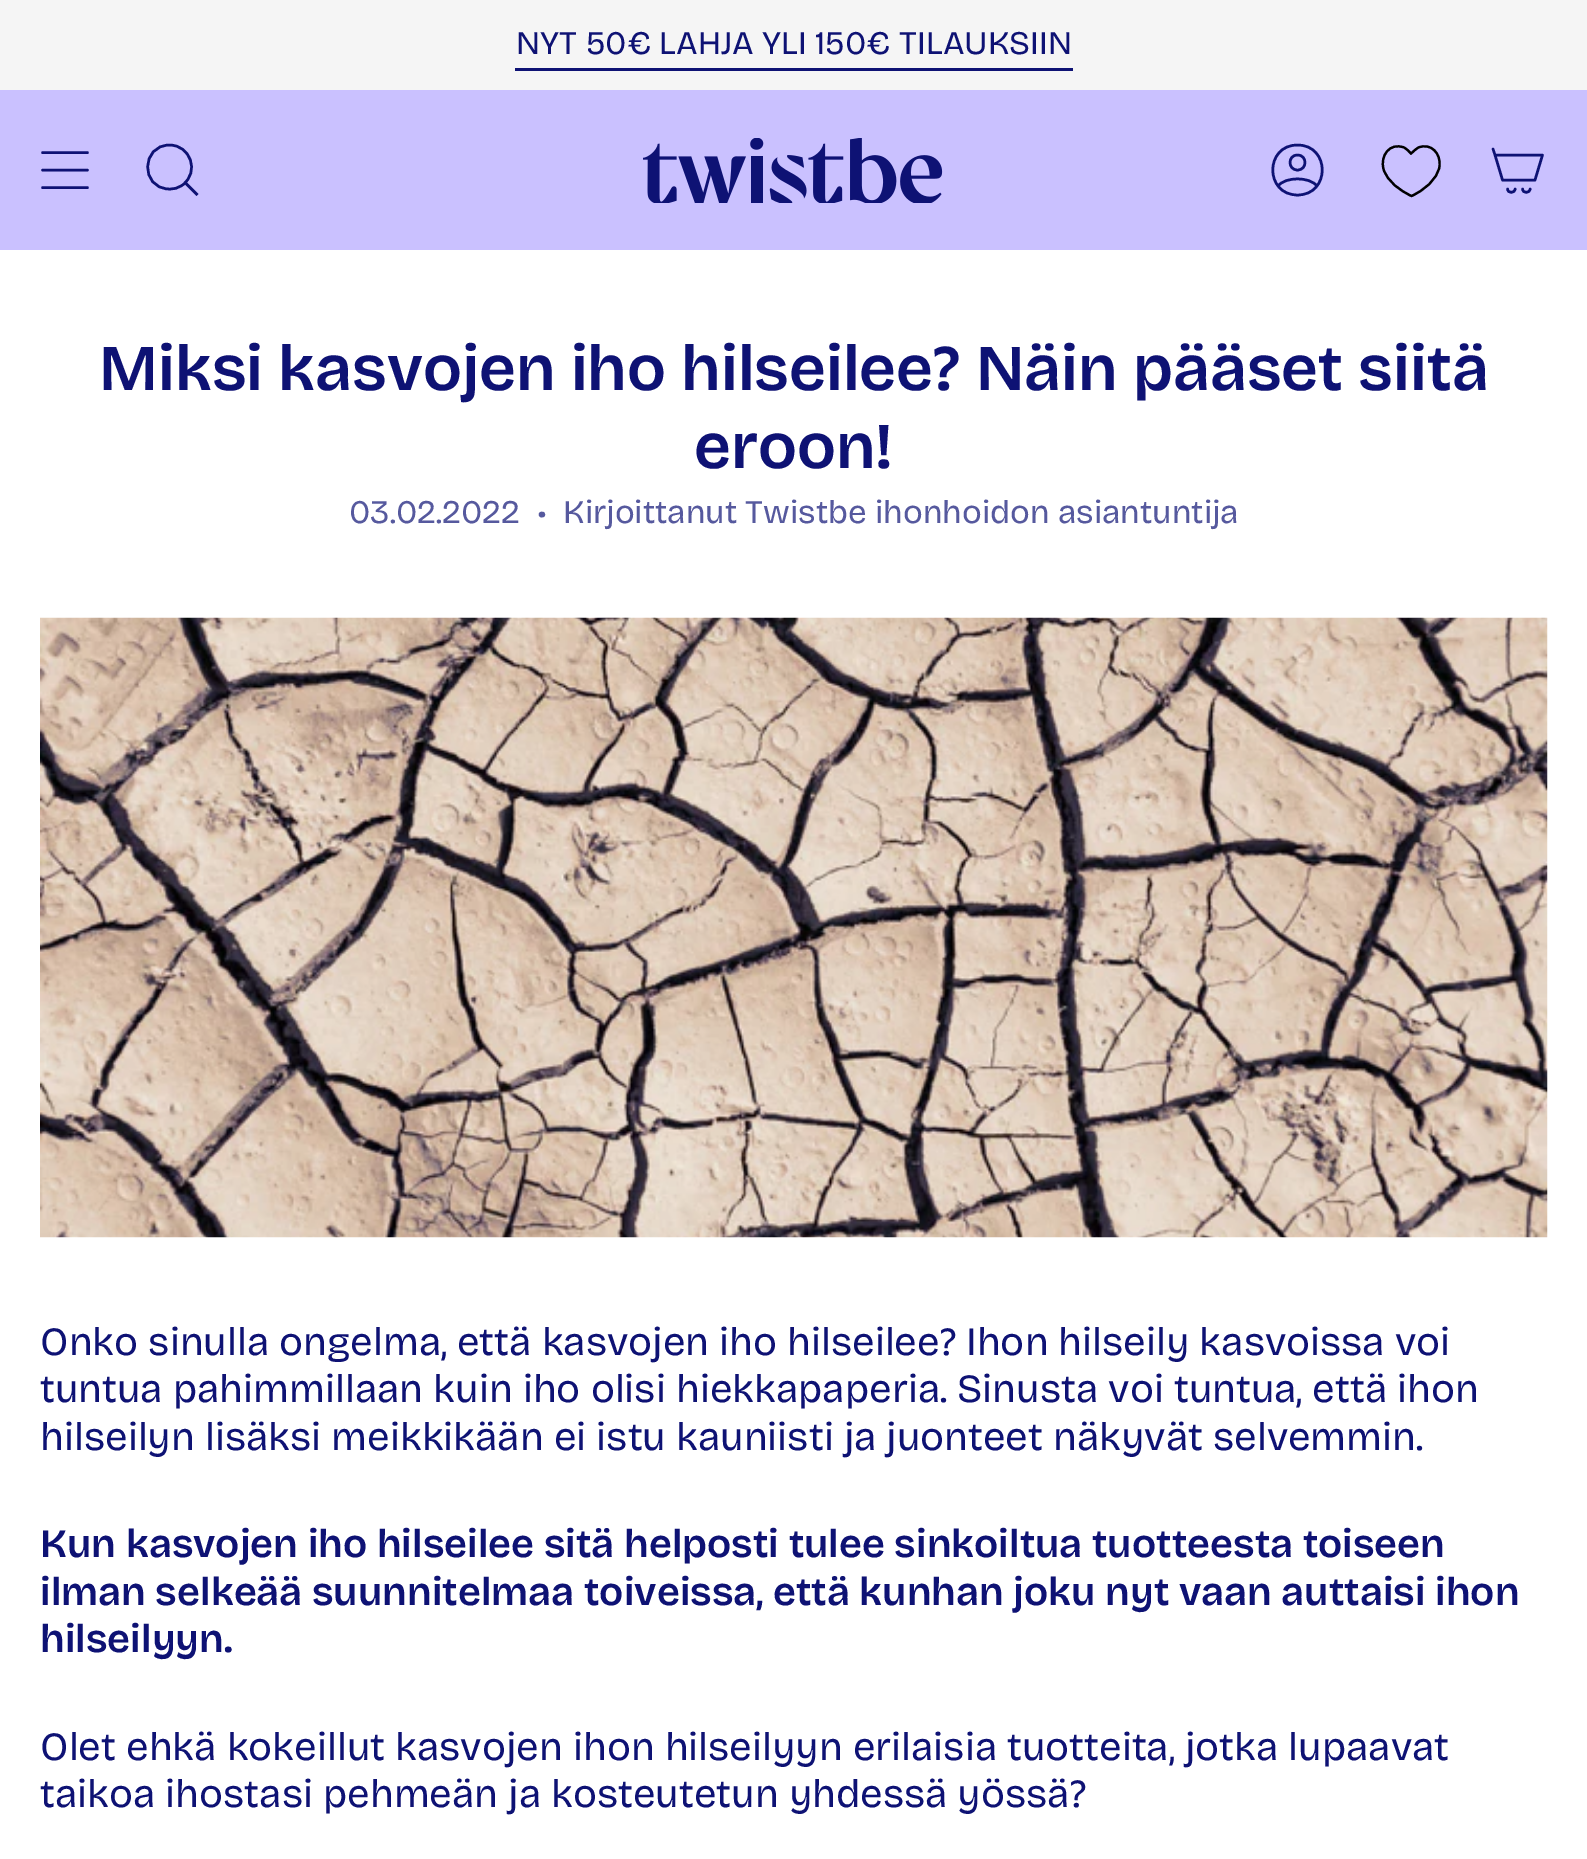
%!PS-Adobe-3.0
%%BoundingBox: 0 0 1587 1859
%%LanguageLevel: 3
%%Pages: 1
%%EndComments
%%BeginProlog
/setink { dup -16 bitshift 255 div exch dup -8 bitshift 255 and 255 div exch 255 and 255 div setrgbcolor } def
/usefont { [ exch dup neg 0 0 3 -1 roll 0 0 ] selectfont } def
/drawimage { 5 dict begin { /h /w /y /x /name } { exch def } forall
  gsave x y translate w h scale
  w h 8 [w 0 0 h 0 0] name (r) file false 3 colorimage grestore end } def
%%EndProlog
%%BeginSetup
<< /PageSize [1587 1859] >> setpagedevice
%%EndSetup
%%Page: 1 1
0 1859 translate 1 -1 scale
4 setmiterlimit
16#FFFFFF setink
0 0 1587 1859 rectfill
16#F5F5F5 setink
0 0 1587 90 rectfill
/BricolageGrotesque-ExtraBold 33 usefont
16#0E1274 setink
516 54 moveto (NYT 50€ LAHJA YLI 150€ TILAUKSIIN) show
515 68 558 3 rectfill
16#CAC1FF setink
0 90 1587 160 rectfill
16#0E1274 setink
2.5 setlinewidth
1 setlinecap
1 setlinejoin
42.5 152.5 moveto 87.5 152.5 lineto 42.5 170 moveto 87.5 170 lineto 42.5 187.5 moveto 87.5 187.5 lineto stroke
0 setlinecap
0 setlinejoin
169.5 145 moveto 190.5 145 200 172 182.5 185 curveto 178.5 188 173.5 189.5 168.5 189 curveto 140 188 141 145 169.5 145 curveto closepath 185.5 183 moveto 197.5 195 lineto stroke
(img1.raw) 643 138 300 65 drawimage
1 setlinecap
1 setlinejoin
1297.5 145 moveto 1264.5 145 1264.5 195 1297.5 195 curveto 1330.5 195 1330.5 145 1297.5 145 curveto closepath 1278 186 moveto 1285.5 176.5 1309.5 176.5 1317 186 curveto 1297.5 170 moveto 1307.5 170 1307.5 155 1297.5 155 curveto 1287.5 155 1287.5 170 1297.5 170 curveto closepath stroke
16#000000 setink
2.2 setlinewidth
0 setlinecap
0 setlinejoin
1411.5 196 moveto 1400 190.5 1387.5 182 1383.5 169 curveto 1380 156 1389.5 142 1404 147.5 curveto 1407 149 1409 151.5 1411 153.5 curveto 1413.5 151.5 1415.5 149 1418.5 147.5 curveto 1431 142.5 1441 153.5 1439.5 166 curveto 1437.5 180 1423.5 190.5 1411.5 196 curveto closepath stroke
16#0E1274 setink
2.5 setlinewidth
1 setlinecap
1 setlinejoin
1495 155 moveto 1542.5 155 lineto 1535 180 lineto 1502.5 180 lineto closepath 1495 155 moveto 1493 149 lineto 1515 189 moveto 1515 193.5 1507.5 193.5 1507.5 189 curveto 1530 189 moveto 1530 193.5 1522.5 193.5 1522.5 189 curveto stroke
/BricolageGrotesque-SemiBold 65 usefont
99 390 moveto (Miksi kasvojen iho hilseilee? Näin pääset siitä) show
694 468 moveto (eroon!) show
/BricolageGrotesque-ExtraBold 33 usefont
16#56599E setink
[
    [(03.02.2022) 349 523]
    [(•) 538 523]
    [(Kirjoittanut Twistbe ihonhoidon asiantuntija) 563 523]
] { aload pop moveto show } forall
(img2.raw) 40 617 1508 621 drawimage
/BricolageGrotesque-ExtraBold 40 usefont
16#0E1274 setink
[
    [(Onko sinulla ongelma, että kasvojen iho hilseilee? Ihon hilseily kasvoissa voi) 40 1355]
    [(tuntua pahimmillaan kuin iho olisi hiekkapaperia. Sinusta voi tuntua, että ihon) 40 1402]
    [(hilseilyn lisäksi meikkikään ei istu kauniisti ja juonteet näkyvät selvemmin.) 40 1450]
] { aload pop moveto show } forall
/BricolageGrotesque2-SemiBold 40 usefont
[
    [(Kun kasvojen iho hilseilee sitä helposti tulee sinkoiltua tuotteesta toiseen) 40 1557]
    [(ilman selkeää suunnitelmaa toiveissa, että kunhan joku nyt vaan auttaisi ihon) 40 1605]
    [(hilseilyyn.) 40 1652]
] { aload pop moveto show } forall
/BricolageGrotesque-ExtraBold 40 usefont
40 1760 moveto (Olet ehkä kokeillut kasvojen ihon hilseilyyn erilaisia tuotteita, jotka lupaavat) show
40 1807 moveto (taikoa ihostasi pehmeän ja kosteutetun yhdessä yössä?) show
showpage
%%EOF
